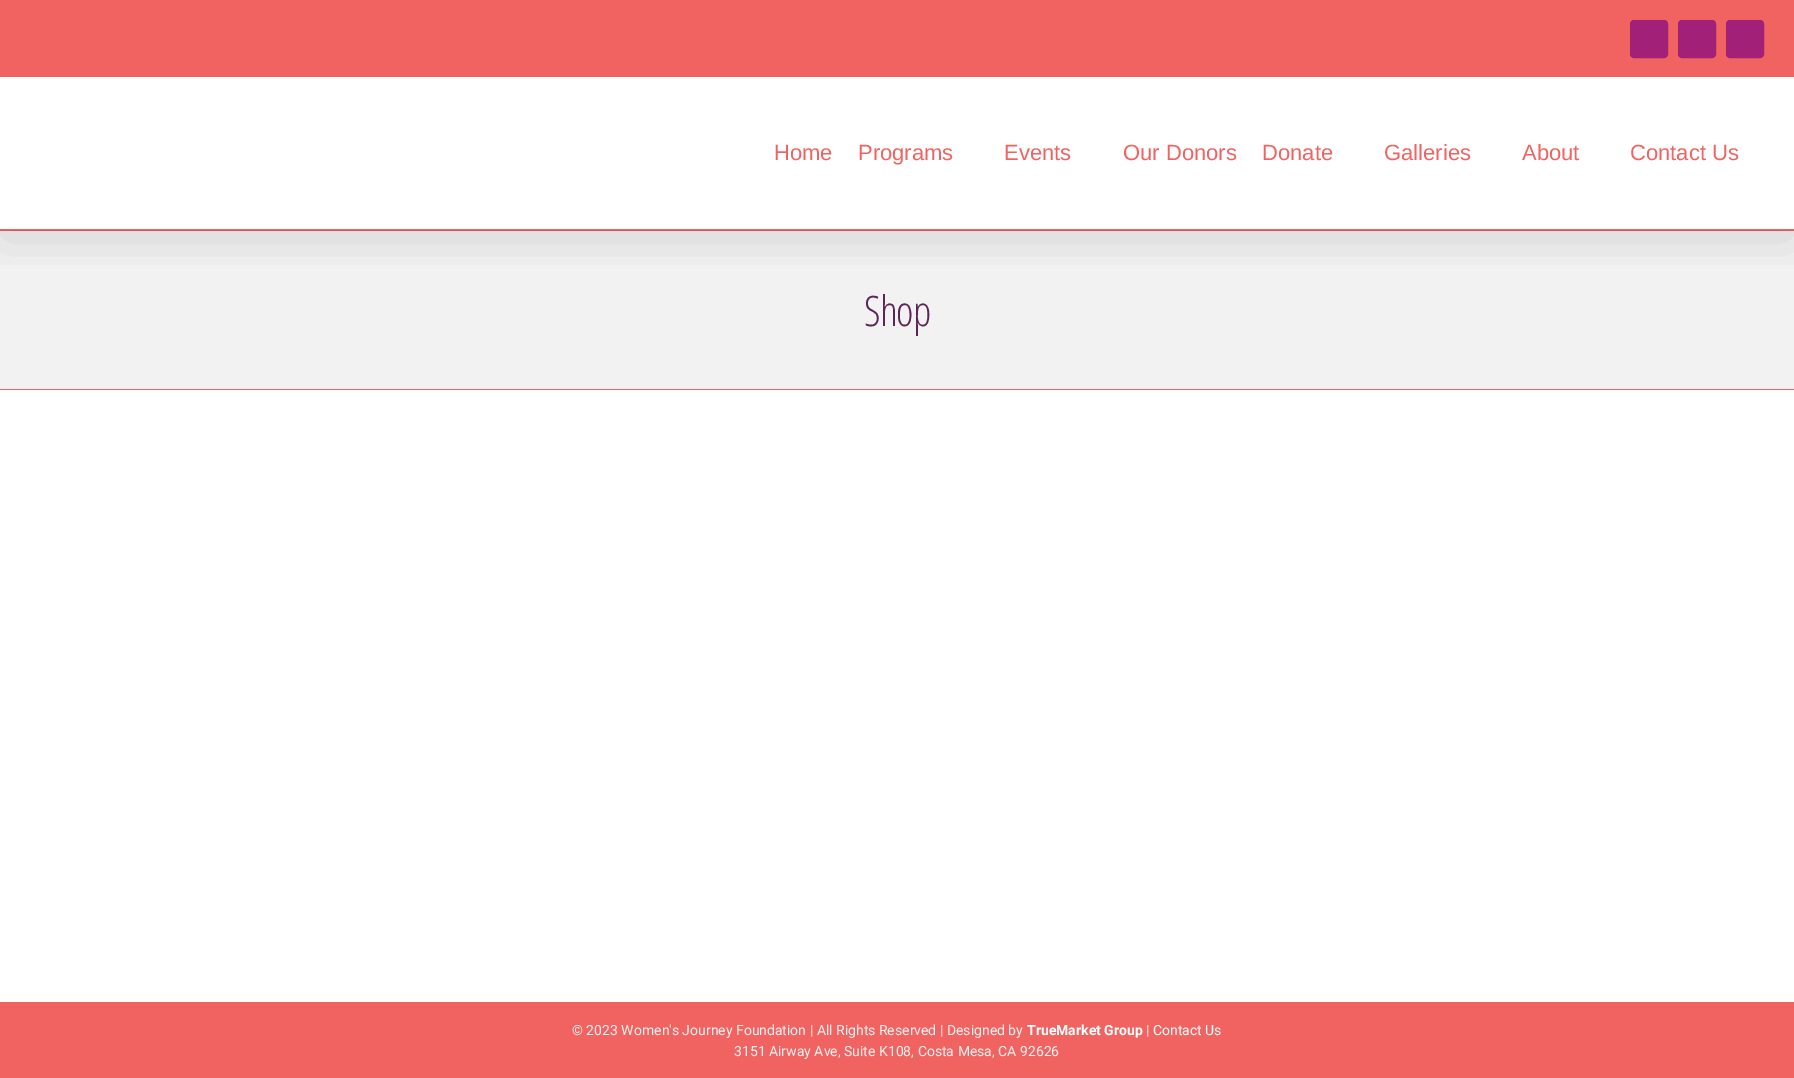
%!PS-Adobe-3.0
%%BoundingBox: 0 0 1794 1078
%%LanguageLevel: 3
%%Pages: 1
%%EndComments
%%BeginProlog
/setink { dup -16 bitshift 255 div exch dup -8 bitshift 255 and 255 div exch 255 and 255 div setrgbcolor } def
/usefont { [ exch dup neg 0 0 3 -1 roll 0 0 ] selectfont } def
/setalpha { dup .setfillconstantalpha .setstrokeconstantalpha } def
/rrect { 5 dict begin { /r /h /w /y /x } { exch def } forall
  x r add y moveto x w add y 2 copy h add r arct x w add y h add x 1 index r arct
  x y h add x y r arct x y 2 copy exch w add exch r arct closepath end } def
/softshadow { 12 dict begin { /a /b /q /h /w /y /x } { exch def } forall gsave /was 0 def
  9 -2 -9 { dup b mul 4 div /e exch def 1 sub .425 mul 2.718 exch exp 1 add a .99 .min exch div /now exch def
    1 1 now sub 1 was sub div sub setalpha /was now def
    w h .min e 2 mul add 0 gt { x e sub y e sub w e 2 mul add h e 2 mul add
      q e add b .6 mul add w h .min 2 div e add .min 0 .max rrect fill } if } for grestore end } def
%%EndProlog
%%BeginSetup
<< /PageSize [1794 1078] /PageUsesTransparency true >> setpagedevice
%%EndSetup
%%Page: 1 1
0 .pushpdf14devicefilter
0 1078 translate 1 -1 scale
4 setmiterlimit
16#FFFFFF setink
0 0 1794 1078 rectfill
16#F2F2F2 setink
0 231 1794 158 rectfill
16#F16361 setink
0 230 1794 1 rectfill
gsave
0 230 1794 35 rectclip
16#000000 setink
2 12 1790 226 0 25 0.14 softshadow
grestore
0 0 1794 77 rectfill
16#A32079 setink
1630.5 20.5 37 37 3.5 rrect gsave fill grestore
stroke
1678.5 20.5 37 37 3.5 rrect gsave fill grestore
stroke
1726.5 20.5 37 37 3.5 rrect gsave fill grestore
stroke
16#F16361 setink
0 229 1794 1 rectfill
/LiberationSans-Regular 22 usefont
[
    [(Home) 774 160]
    [(Programs) 858 160]
    [(Events) 1004 160]
    [(Our Donors) 1123 160]
    [(Donate) 1262 160]
    [(Galleries) 1384 160]
    [(About) 1522 160]
    [(Contact Us) 1630 160]
] { aload pop moveto show } forall
0 389 1794 1 rectfill
/OpenSansCondensed-Light 42 usefont
16#5B2556 setink
864 326 moveto -1 0 (Shop) ashow
16#F16361 setink
0 1002 1794 76 rectfill
/Roboto-Regular 14 usefont
16#F2F2F2 setink
572 1035 moveto (© 2023 Women's Journey Foundation | All Rights Reserved | Designed by) show
/Roboto-Bold 14 usefont
16#FFFFFF setink
1027 1035 moveto (TrueMarket Group) show
/Roboto-Regular 14 usefont
16#F2F2F2 setink
1146 1035 moveto (|) show
16#FFFFFF setink
1153 1035 moveto (Contact Us) show
16#F2F2F2 setink
734 1056 moveto (3151 Airway Ave, Suite K108, Costa Mesa, CA 92626) show
.poppdf14devicefilter showpage
%%EOF
